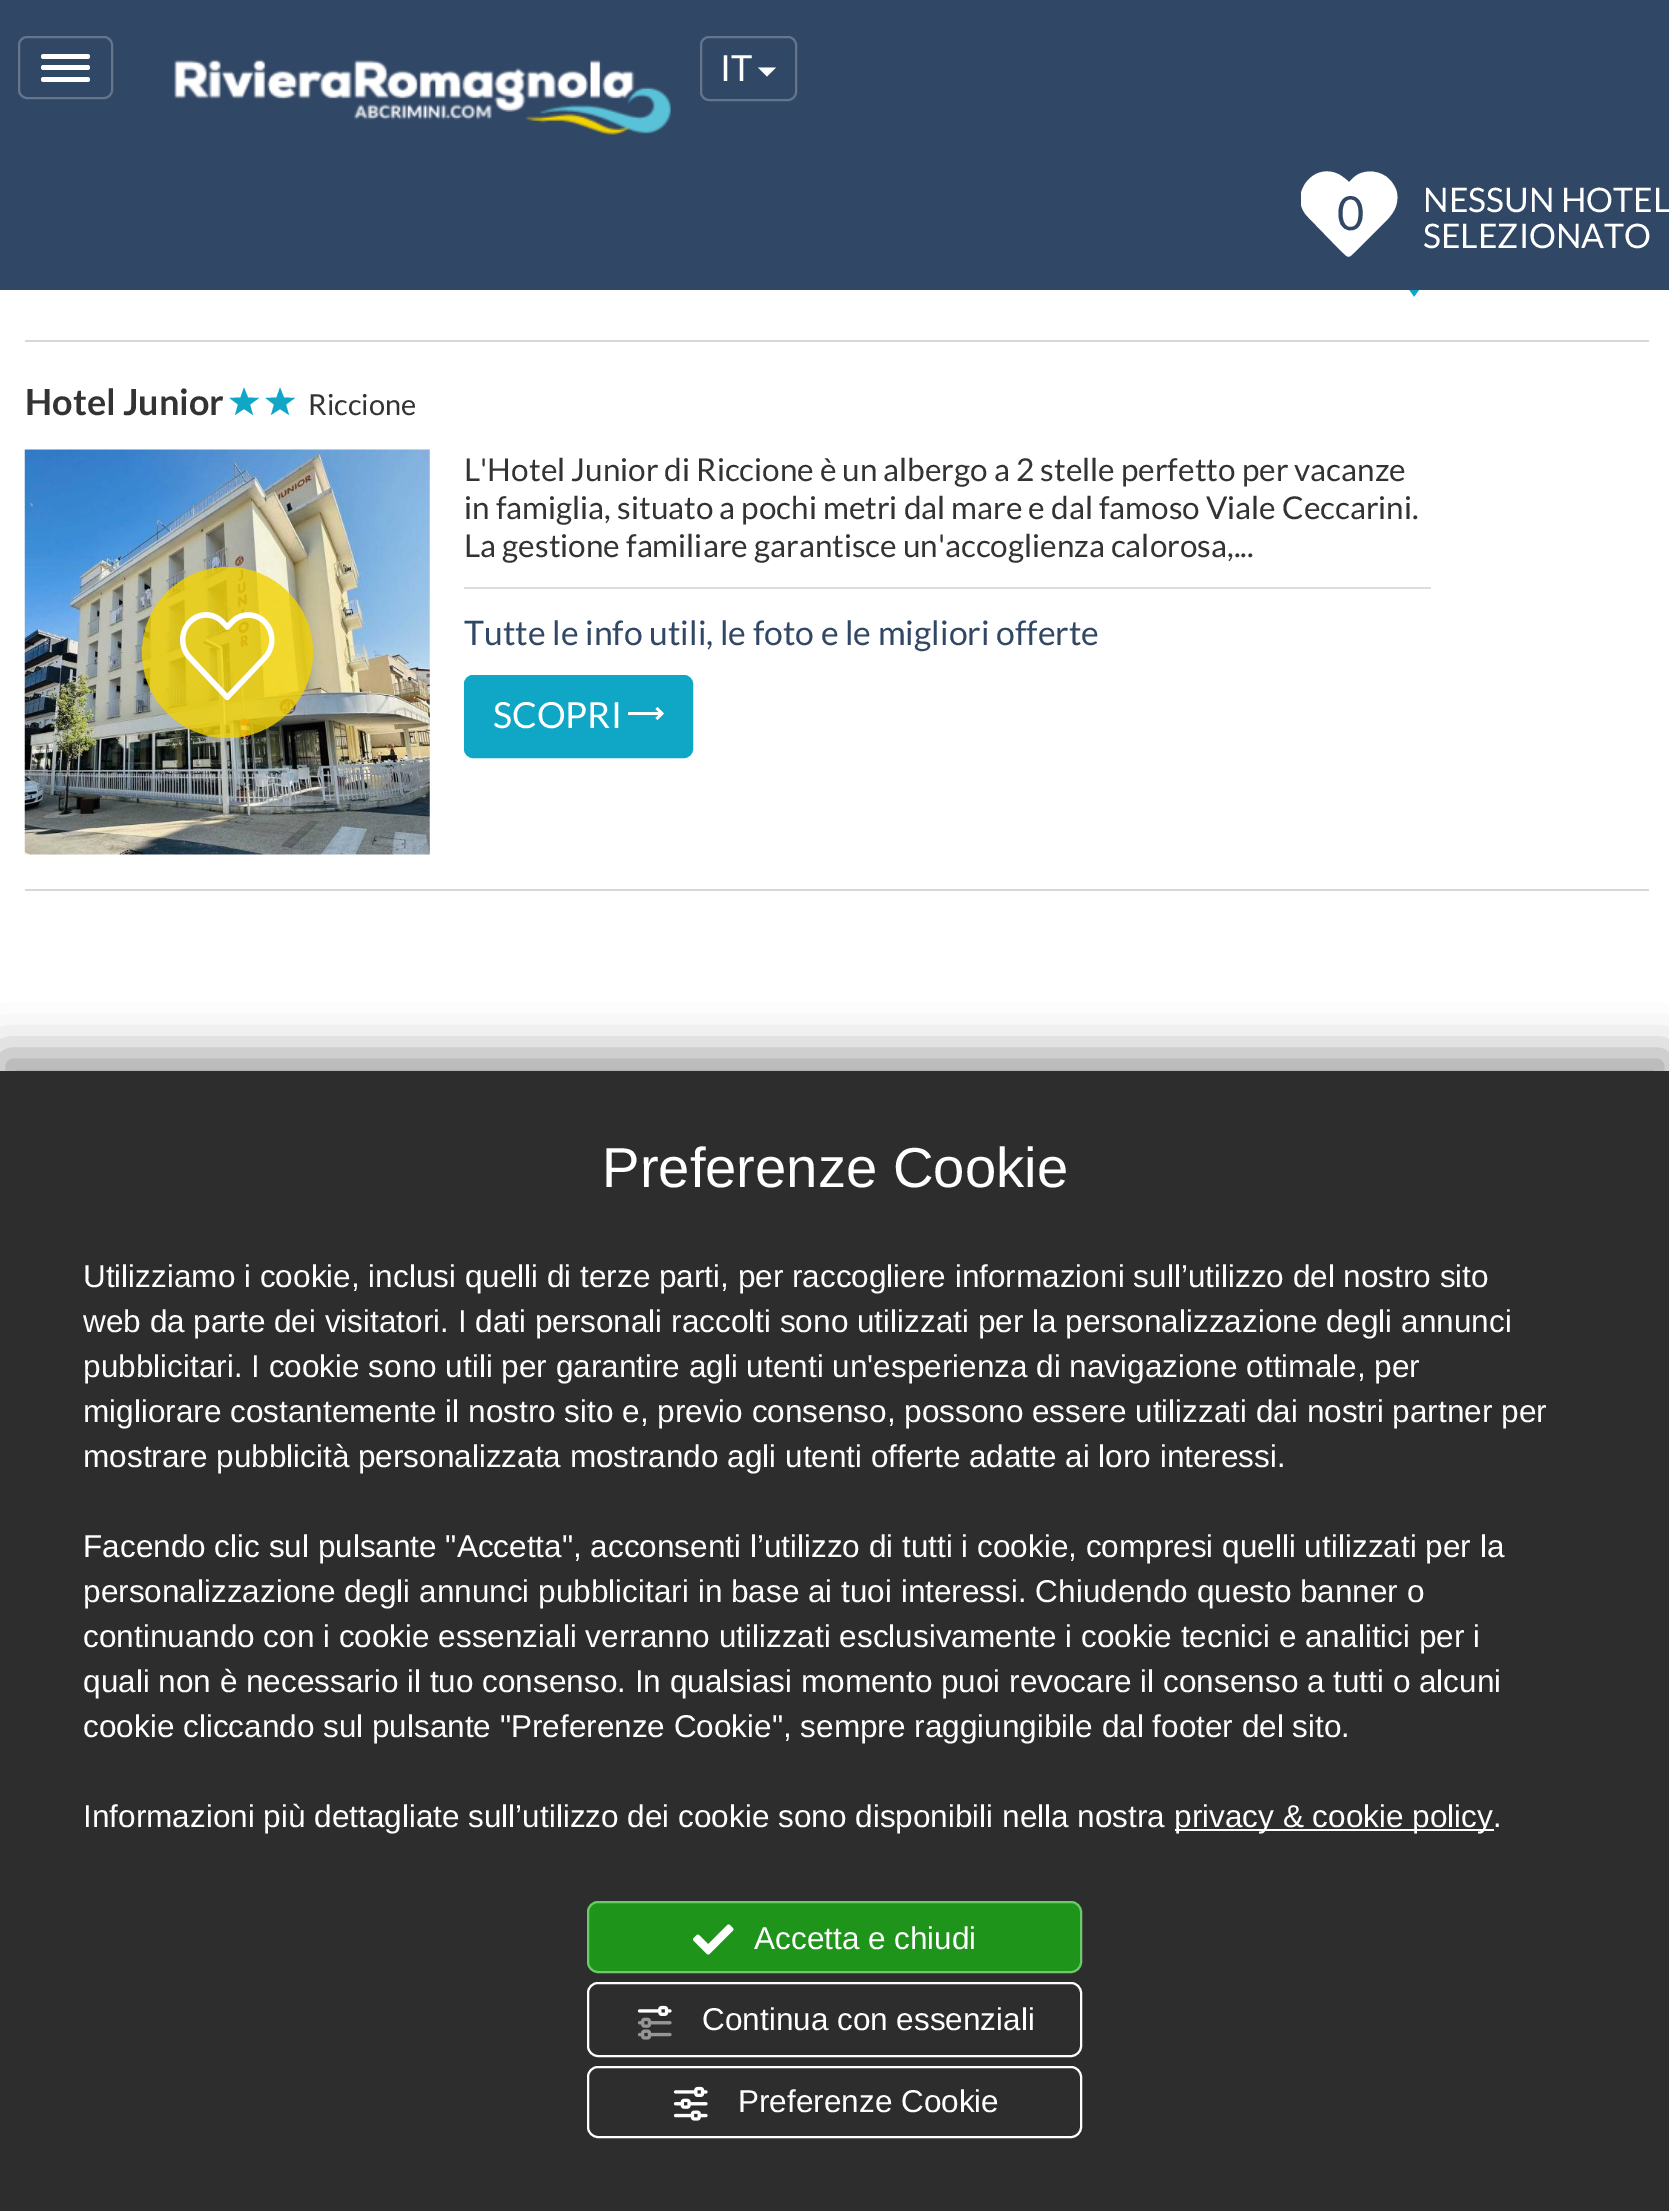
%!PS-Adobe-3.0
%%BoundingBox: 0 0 1669 2211
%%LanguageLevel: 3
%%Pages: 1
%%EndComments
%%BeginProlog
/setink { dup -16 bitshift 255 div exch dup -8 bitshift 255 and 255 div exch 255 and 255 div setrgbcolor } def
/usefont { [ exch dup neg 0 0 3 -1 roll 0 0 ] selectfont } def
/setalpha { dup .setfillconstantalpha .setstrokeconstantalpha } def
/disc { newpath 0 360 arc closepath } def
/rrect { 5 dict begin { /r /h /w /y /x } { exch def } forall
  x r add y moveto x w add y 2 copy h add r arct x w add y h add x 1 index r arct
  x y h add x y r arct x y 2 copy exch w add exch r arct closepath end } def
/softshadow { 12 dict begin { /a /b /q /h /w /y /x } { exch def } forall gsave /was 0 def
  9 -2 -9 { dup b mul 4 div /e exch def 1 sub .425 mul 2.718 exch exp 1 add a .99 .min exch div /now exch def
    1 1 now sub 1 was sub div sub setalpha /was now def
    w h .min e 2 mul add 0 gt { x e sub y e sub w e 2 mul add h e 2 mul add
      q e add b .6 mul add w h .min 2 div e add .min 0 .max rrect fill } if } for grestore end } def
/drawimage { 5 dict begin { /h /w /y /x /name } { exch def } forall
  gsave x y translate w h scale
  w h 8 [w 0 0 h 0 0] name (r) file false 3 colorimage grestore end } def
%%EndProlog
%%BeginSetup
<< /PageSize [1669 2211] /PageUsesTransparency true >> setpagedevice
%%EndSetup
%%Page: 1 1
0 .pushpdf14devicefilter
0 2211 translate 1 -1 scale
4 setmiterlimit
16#FFFFFF setink
0 0 1669 2211 rectfill
16#304766 setink
0 0 1669 290 rectfill
16#64758C setink
2 setlinewidth
19 37 93 61 8 rrect stroke
16#FFFFFF setink
41 54 49 5 2.5 rrect fill
41 65 49 5 2.5 rrect fill
41 77 49 5 2.5 rrect fill
(img1.raw) 174 59 497 76 drawimage
16#64758C setink
701 37 95 63 8 rrect stroke
/Lato-Regular 36 usefont
16#FFFFFF setink
720 81 moveto (IT) show
758 67.5 moveto 776 67.5 lineto 767 76.5 lineto closepath fill
gsave
1301 167 99 90 rectclip
1389 179 moveto 1381 171 1367 169 1357 175 curveto 1354 177 1351 180 1349 182 curveto 1346 179 1343 177 1340 175 curveto 1313 160 1287 196 1308 217 curveto 1340 250 lineto 1350 259 1347 259 1357 250 curveto 1383 224 lineto 1392 215 1399 207 1397 193 curveto 1396 188 1393 183 1389 179 curveto closepath fill
grestore
/Lato-Regular 47 usefont
16#304766 setink
1337 230 moveto (0) show
/Lato-Regular 33.75 usefont
16#FFFFFF setink
1423 212 moveto (NESSUN HOTEL) show
1423 248 moveto (SELEZIONATO) show
16#D7D7D7 setink
25 340 1624 2 rectfill
(img2.raw) 1409 290 10 7 drawimage
25 889 1624 2 rectfill
/Lato-Bold 36 usefont
16#333333 setink
25 415 moveto (Hotel Junior) show
16#10A6C6 setink
244 387.5 moveto 248 397.5 lineto 259 398 lineto 250 404.5 lineto 253 415 lineto 244 409 lineto 235 415 lineto 238 404.5 lineto 229.5 398 lineto 240.5 397.5 lineto closepath fill
280 387.5 moveto 284 397.5 lineto 295 398 lineto 286 404.5 lineto 289 415 lineto 280 409 lineto 271 415 lineto 274 404.5 lineto 265.5 398 lineto 276.5 397.5 lineto closepath fill
/Lato-Regular 29 usefont
16#333333 setink
308 415 moveto (Riccione) show
(img3.raw) 24 449 406 406 drawimage
0.8 setalpha
16#F2D202 setink
227.5 652.5 85.5 disc fill
1 setalpha
(img4.raw) 180 612 95 89 drawimage
/Lato-Regular 31.5 usefont
16#333333 setink
[
    [(L'Hotel Junior di Riccione è un albergo a 2 stelle perfetto per vacanze) 464 481]
    [(in famiglia, situato a pochi metri dal mare e dal famoso Viale Ceccarini.) 464 519]
    [(La gestione familiare garantisce un'accoglienza calorosa,...) 464 557]
] { aload pop moveto show } forall
16#DDDDDD setink
464 587 967 2 rectfill
/Lato-Regular 33.75 usefont
16#304766 setink
464 645 moveto (Tutte le info utili, le foto e le migliori offerte) show
16#10A7C6 setink
465 676 227 81 8 rrect gsave fill grestore
stroke
/Lato-Regular 36 usefont
16#FFFFFF setink
493 728 moveto (SCOPRI) show
658.5 712 moveto 628 712 lineto 628 715 lineto 658.5 715 lineto 655.5 718 lineto 657.5 720 lineto 664 713.5 lineto 657.5 707 lineto 655.5 709 lineto closepath fill
16#000000 setink
0 1053 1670 1141 0 22.5 0.38 softshadow
16#2D2D2D setink
0 1071 1669 1140 rectfill
/LiberationSans-Regular 56.25 usefont
16#FFFFFF setink
602 1187 moveto (Preferenze Cookie) show
/LiberationSans-Regular 31.5 usefont
[
    [(Utilizziamo i cookie, inclusi quelli di terze parti, per raccogliere informazioni sull’utilizzo del nostro sito) 83 1287]
    [(web da parte dei visitatori. I dati personali raccolti sono utilizzati per la personalizzazione degli annunci) 83 1332]
    [(pubblicitari. I cookie sono utili per garantire agli utenti un'esperienza di navigazione ottimale, per) 83 1377]
    [(migliorare costantemente il nostro sito e, previo consenso, possono essere utilizzati dai nostri partner per) 83 1422]
    [(mostrare pubblicità personalizzata mostrando agli utenti offerte adatte ai loro interessi.) 83 1467]
    [(Facendo clic sul pulsante "Accetta", acconsenti l’utilizzo di tutti i cookie, compresi quelli utilizzati per la) 83 1557]
    [(personalizzazione degli annunci pubblicitari in base ai tuoi interessi. Chiudendo questo banner o) 83 1602]
    [(continuando con i cookie essenziali verranno utilizzati esclusivamente i cookie tecnici e analitici per i) 83 1647]
    [(quali non è necessario il tuo consenso. In qualsiasi momento puoi revocare il consenso a tutti o alcuni) 83 1692]
    [(cookie cliccando sul pulsante "Preferenze Cookie", sempre raggiungibile dal footer del sito.) 83 1737]
    [(Informazioni più dettagliate sull’utilizzo dei cookie sono disponibili nella nostra) 83 1827]
] { aload pop moveto show } forall
1175 1829 319 2 rectfill
1174 1827 moveto (privacy & cookie policy.) show
16#1E941A setink
588 1902 493 70 10 rrect gsave fill grestore
16#6CCA69 setink
stroke
(img5.raw) 693 1924 41 31 drawimage
16#FFFFFF setink
754 1949 moveto (Accetta e chiudi) show
588 1983 493 73 10 rrect stroke
(img6.raw) 637 2005 35 35 drawimage
702 2030 moveto (Continua con essenziali) show
588 2067 493 70 10 rrect stroke
(img7.raw) 673 2086 35 35 drawimage
738 2112 moveto (Preferenze Cookie) show
.poppdf14devicefilter showpage
%%EOF
